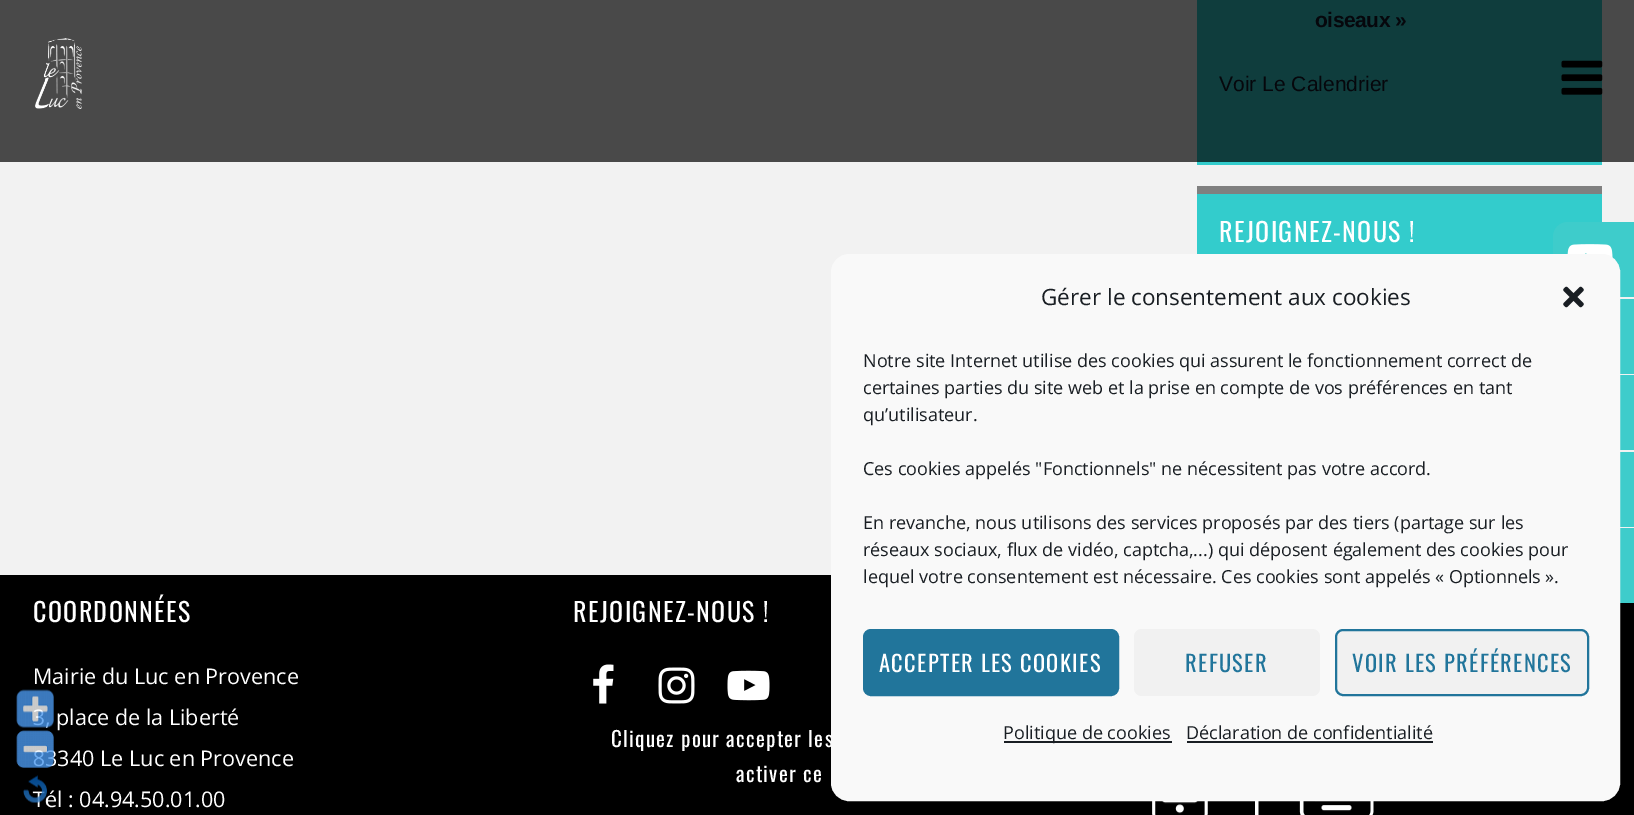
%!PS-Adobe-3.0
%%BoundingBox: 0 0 1634 815
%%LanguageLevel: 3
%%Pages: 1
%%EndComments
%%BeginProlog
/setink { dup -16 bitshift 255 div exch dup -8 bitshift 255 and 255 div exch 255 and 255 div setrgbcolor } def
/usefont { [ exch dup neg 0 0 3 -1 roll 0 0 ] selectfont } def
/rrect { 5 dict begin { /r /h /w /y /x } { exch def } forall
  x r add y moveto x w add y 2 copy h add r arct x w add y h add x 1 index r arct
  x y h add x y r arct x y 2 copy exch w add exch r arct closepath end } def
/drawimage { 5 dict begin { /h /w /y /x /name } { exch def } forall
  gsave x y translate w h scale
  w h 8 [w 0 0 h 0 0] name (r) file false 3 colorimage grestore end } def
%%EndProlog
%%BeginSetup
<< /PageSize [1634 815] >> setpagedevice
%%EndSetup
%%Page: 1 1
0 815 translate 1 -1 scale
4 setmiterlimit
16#F2F2F2 setink
0 0 1634 815 rectfill
[
    [0 0 1634 162 16#494949]
    [1197 162 405 3 16#33CCCC]
    [1197 0 405 162 16#0F3D3D]
] { aload pop setink rectfill } forall
/LiberationSans-Bold 21 usefont
16#06070C setink
1315 27 moveto -0.5 0 (oiseaux ») ashow
/LiberationSans-Regular 21 usefont
1219 91 moveto (Voir Le Calendrier) show
16#33CCCC setink
1197 194 405 60 rectfill
16#808080 setink
1197 186 405 8 rectfill
/Oswald-Regular 26 usefont
16#FFFFFF setink
1219 242 moveto 1.4 0 (REJOIGNEZ-NOUS !) ashow
(img1.raw) 35 38 47 71 drawimage
(img2.raw) 1561 60 42 35 drawimage
16#000000 setink
0 575 1634 240 rectfill
16#FFFFFF setink
33 622 moveto 1.4 0 (COORDONNÉES) ashow
/OpenSans-Regular 21.6 usefont
[
    [(Mairie du Luc en Provence) 33 684]
    [(place de la Liberté) 56 725]
    [(3340 Le Luc en Provence) 45 766]
    [(Tél : 04.94.50.01.00) 33 807]
] { aload pop moveto show } forall
/Oswald-Regular 26 usefont
573 622 moveto 1.4 0 (REJOIGNEZ-NOUS !) ashow
(img3.raw) 593 664 21 40 drawimage
(img4.raw) 658 667 37 37 drawimage
(img5.raw) 727 670 43 31 drawimage
/Oswald-Regular 21 usefont
611 747 moveto 1.25 0 (Cliquez pour accepter les) ashow
736 782 moveto 1.25 0 (activer ce) ashow
(img6.raw) 1152 801 222 14 drawimage
16#3ECCCB setink
1568 222 moveto 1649 222 lineto 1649 297 lineto 1568 297 lineto 1559.5 297 1553 290.5 1553 282 curveto 1553 237 lineto 1553 228.5 1559.5 222 1568 222 curveto closepath fill
(img7.raw) 1567 244 46 14 drawimage
[
    [1620 299 14 75 16#3ECCCB]
    [1620 375 14 75 16#3ECCCB]
    [1620 452 14 75 16#3ECCCB]
    [1620 528 14 75 16#3ECCCB]
] { aload pop setink rectfill } forall
(img8.raw) 16 689 38 39 drawimage
(img9.raw) 16 730 38 38 drawimage
(img10.raw) 23 775 24 32 drawimage
16#F9F9F9 setink
832 255 787 545 17 rrect gsave fill grestore
2 setlinewidth
stroke
/OpenSans-Regular 22.5 usefont
16#191E23 setink
1041 305 moveto (Gérer le consentement aux cookies) show
(img11.raw) 1563 286 21 22 drawimage
/OpenSans-Regular 18 usefont
[
    [(Notre site Internet utilise des cookies qui assurent le fonctionnement correct de) 863 367]
    [(certaines parties du site web et la prise en compte de vos préférences en tant) 863 394]
    [(qu’utilisateur.) 863 421]
    [(Ces cookies appelés "Fonctionnels" ne nécessitent pas votre accord.) 863 475]
    [(En revanche, nous utilisons des services proposés par des tiers \(partage sur les) 863 529]
    [(réseaux sociaux, flux de vidéo, captcha,...\) qui déposent également des cookies pour) 863 556]
    [(lequel votre consentement est nécessaire. Ces cookies sont appelés « Optionnels ».) 863 583]
] { aload pop moveto show } forall
16#21759B setink
864 630 254 65 7 rrect gsave fill grestore
stroke
/Oswald-Regular 22.5 usefont
16#FFFFFF setink
879 672 moveto 1.35 0 (ACCEPTER LES COOKIES) ashow
16#F1F1F1 setink
1134 629 186 67 8 rrect fill
16#21759B setink
1185 672 moveto 1.35 0 (REFUSER) ashow
16#F1F1F1 setink
1336 630 252 65 7 rrect gsave fill grestore
16#21759B setink
stroke
1352 672 moveto 1.35 0 (VOIR LES PRÉFÉRENCES) ashow
16#191E23 setink
1004 741 168 2 rectfill
/OpenSans-Regular 18 usefont
1003 739 moveto (Politique de cookies) show
1186 739 moveto (Déclaration de confidentialité) show
1187 741 246 2 rectfill
showpage
%%EOF
